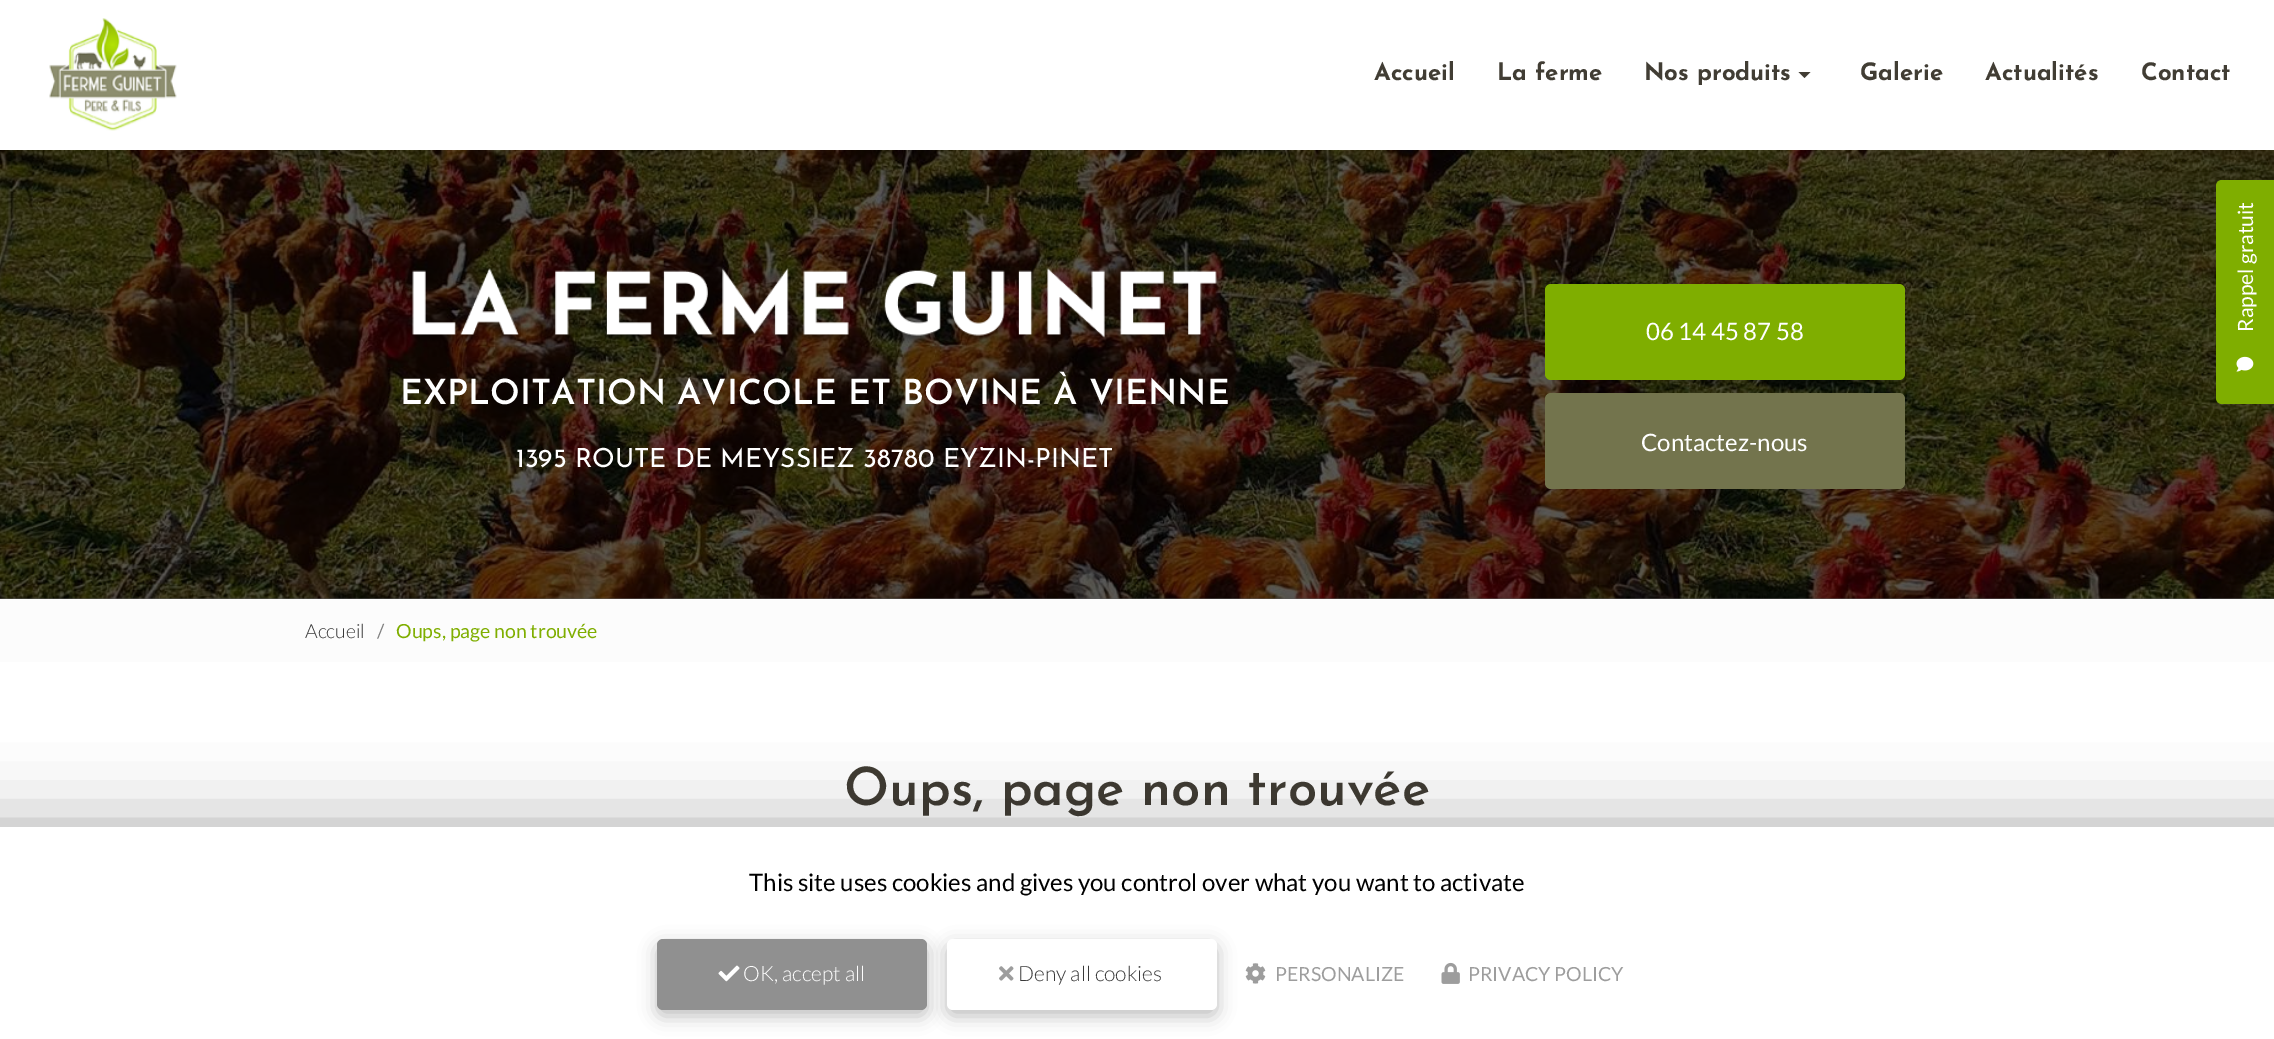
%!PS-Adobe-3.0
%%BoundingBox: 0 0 2274 1039
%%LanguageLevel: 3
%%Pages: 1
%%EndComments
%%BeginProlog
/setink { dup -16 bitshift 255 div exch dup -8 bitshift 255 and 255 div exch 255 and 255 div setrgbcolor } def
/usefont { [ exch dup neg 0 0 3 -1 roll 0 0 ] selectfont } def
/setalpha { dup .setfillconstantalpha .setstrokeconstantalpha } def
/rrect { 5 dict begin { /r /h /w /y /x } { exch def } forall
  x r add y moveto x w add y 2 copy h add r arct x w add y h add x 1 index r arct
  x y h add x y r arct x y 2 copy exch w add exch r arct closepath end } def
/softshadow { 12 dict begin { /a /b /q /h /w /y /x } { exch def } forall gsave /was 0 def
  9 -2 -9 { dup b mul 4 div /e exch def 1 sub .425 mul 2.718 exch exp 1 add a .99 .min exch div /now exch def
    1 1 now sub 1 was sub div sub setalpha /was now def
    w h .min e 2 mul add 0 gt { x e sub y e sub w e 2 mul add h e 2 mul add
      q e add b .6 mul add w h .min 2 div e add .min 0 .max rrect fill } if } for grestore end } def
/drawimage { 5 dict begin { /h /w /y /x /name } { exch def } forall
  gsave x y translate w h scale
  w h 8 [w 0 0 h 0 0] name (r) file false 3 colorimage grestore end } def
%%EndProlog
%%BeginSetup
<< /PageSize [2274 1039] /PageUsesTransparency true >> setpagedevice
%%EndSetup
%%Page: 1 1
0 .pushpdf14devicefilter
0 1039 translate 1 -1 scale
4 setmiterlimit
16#FFFFFF setink
0 0 2274 1039 rectfill
16#595959 setink
0 598 2274 1 rectfill
(img1.raw) 49 18 128 113 drawimage
/JosefinSans-Bold 24 usefont
16#413D34 setink
[
    [(Accueil) 1374 80]
    [(La ferme) 1497 80]
    [(Nos produits) 1644 80]
] { aload pop moveto show } forall
1798.5 72 moveto 1810.5 72 lineto 1804.5 78 lineto closepath fill
[
    [(Galerie) 1860 80]
    [(Actualités) 1985 80]
    [(Contact) 2141 80]
] { aload pop moveto show } forall
(img3.raw) 0 150 2274 449 drawimage
16#7FAE00 setink
2222 180 moveto 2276 180 lineto 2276 404 lineto 2222 404 lineto 2218.5 404 2216 401.5 2216 398 curveto 2216 186 lineto 2216 182.5 2218.5 180 2222 180 curveto closepath fill
/Lato-Regular 21 usefont
16#FFFFFF setink
gsave 2253 332 translate -90 rotate 0 0 moveto (Rappel gratuit) show grestore
(img2.raw) 2236 356 18 16 drawimage
(img4.raw) 410 268 809 75 drawimage
/JosefinSans-SemiBold 34.8 usefont
400 404 moveto (EXPLOITATION AVICOLE ET BOVINE À VIENNE) show
/JosefinSans-Regular 26.4 usefont
516 467 moveto (1395 ROUTE DE MEYSSIEZ 38780 EYZIN-PINET) show
16#7FAE00 setink
1545 284 360 96 6 rrect fill
/Lato-Regular 24 usefont
16#FFFFFF setink
1646 340 moveto (06 14 45 87 58) show
16#73744D setink
1545 393 360 96 6 rrect fill
16#FFFFFF setink
1641 451 moveto (Contactez-nous) show
16#FCFCFC setink
0 599 2274 63 rectfill
/Lato-Light 19.5 usefont
16#393939 setink
305 638 moveto (Accueil) show
/Lato-Regular 19.5 usefont
16#818181 setink
377 638 moveto (/) show
16#7FAE00 setink
396 638 moveto (Oups, page non trouvée) show
/JosefinSans-SemiBold 52.75 usefont
16#413D34 setink
844 805 moveto (Oups, page non trouvée) show
16#000000 setink
-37 827 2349 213 0 37.5 0.34 softshadow
16#FFFFFF setink
0 827 2274 212 rectfill
/Lato-Regular 24 usefont
16#000000 setink
749 891 moveto (This site uses cookies and gives you control over what you want to activate) show
657 945 270 71 6 9 0.25 softshadow
16#909090 setink
657 939 270 71 6 rrect fill
(img5.raw) 718 965 22 17 drawimage
/Lato-Light 21 usefont
16#FFFFFF setink
743 981 moveto (OK, accept all) show
16#000000 setink
947 945 270 71 6 9 0.25 softshadow
16#FFFFFF setink
947 939 270 71 6 rrect fill
(img6.raw) 999 966 15 15 drawimage
16#393939 setink
1018 981 moveto (Deny all cookies) show
(img7.raw) 1245 963 21 21 drawimage
/Lato-Regular 19.5 usefont
16#9D9D9D setink
1275 981 moveto (PERSONALIZE) show
(img8.raw) 1441 962 19 22 drawimage
1468 981 moveto (PRIVACY POLICY) show
.poppdf14devicefilter showpage
%%EOF
